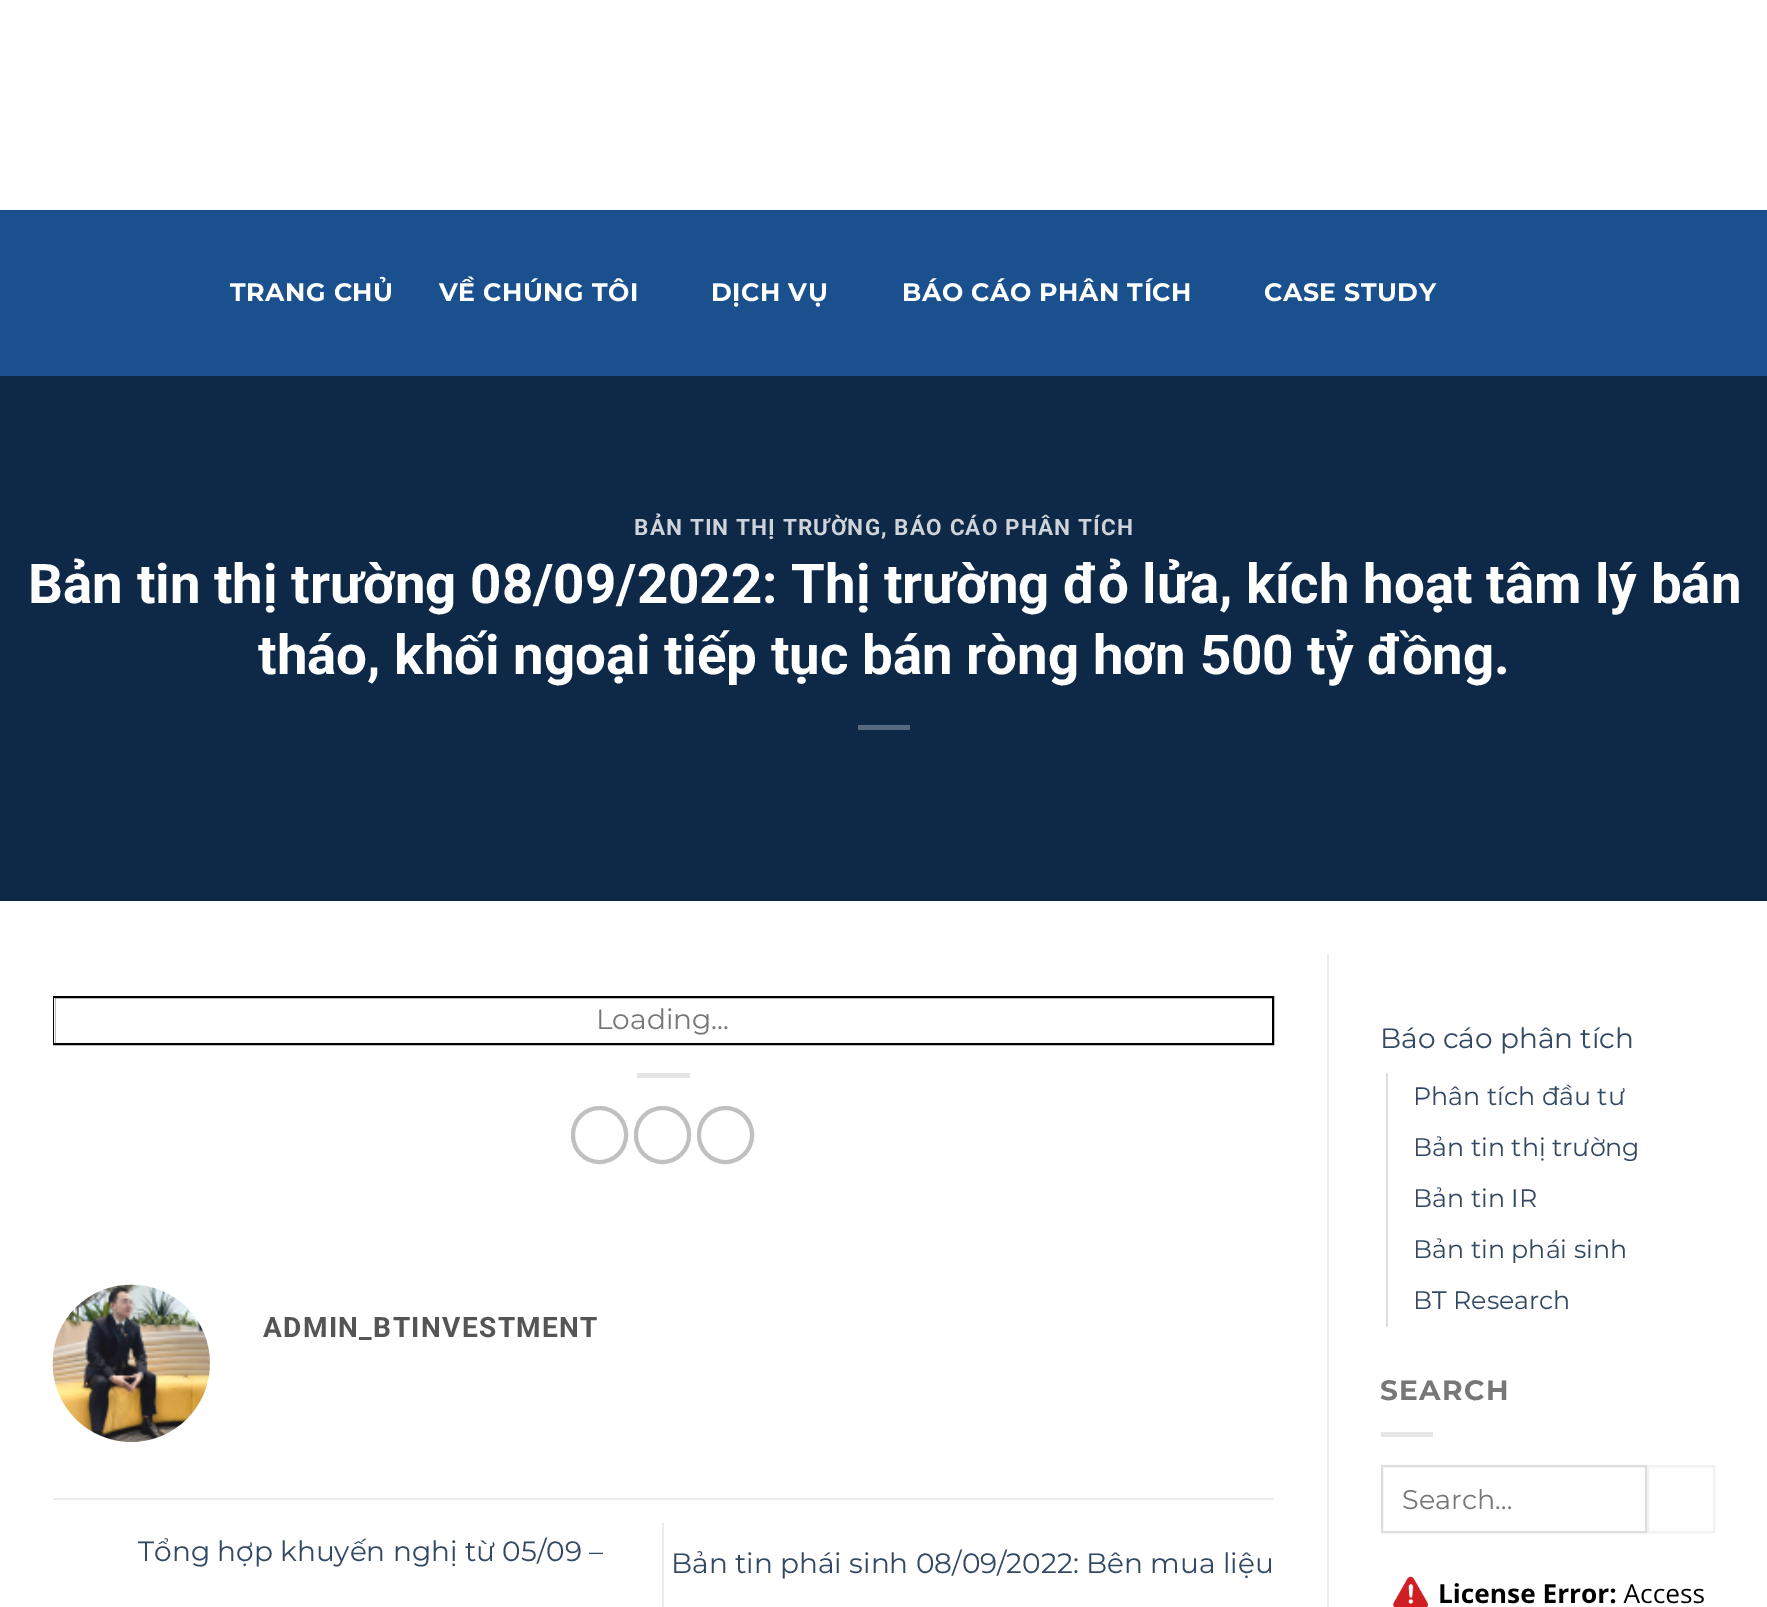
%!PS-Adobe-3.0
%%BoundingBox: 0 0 1767 1607
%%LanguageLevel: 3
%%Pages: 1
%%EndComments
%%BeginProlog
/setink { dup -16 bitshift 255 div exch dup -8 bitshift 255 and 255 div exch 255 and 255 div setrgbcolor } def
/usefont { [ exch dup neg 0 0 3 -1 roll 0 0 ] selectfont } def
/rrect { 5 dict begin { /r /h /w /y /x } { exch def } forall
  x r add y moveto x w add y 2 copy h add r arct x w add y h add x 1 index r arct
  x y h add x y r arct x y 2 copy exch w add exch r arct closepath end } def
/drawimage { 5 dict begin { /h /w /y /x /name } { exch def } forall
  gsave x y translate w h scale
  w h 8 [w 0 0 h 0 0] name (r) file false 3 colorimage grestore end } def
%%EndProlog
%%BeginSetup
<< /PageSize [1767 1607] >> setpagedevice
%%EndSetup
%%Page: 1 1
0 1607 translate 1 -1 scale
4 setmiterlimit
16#FFFFFF setink
0 0 1767 1607 rectfill
16#1B508E setink
0 210 1767 166 rectfill
/Montserrat-Bold 25.25 usefont
16#FFFFFF setink
230 301 moveto 0.5 0 (TRANG CHỦ) ashow
439 301 moveto 0.5 0 (VỀ CHÚNG TÔI) ashow
711 301 moveto 0.5 0 (DỊCH VỤ) ashow
902 301 moveto 0.5 0 (BÁO CÁO PHÂN TÍCH) ashow
1264 301 moveto 0.5 0 (CASE STUDY) ashow
16#0E2848 setink
0 376 1767 525 rectfill
/Roboto-Bold 22.5 usefont
16#CFD4DA setink
634 535 moveto 1.15 0 (BẢN TIN THỊ TRƯỜNG, BÁO CÁO PHÂN TÍCH) ashow
/Roboto-Bold 54.75 usefont
16#FFFFFF setink
28 603 moveto (Bản tin thị trường 08/09/2022: Thị trường đỏ lửa, kích hoạt tâm lý bán) show
258 674 moveto (tháo, khối ngoại tiếp tục bán ròng hơn 500 tỷ đồng.) show
16#56697F setink
858 725 52 5 rectfill
16#000000 setink
2 setlinewidth
54 997 1219 47 rectstroke
16#FFFFFF setink
54 998 1 45 rectfill
/Montserrat-Regular 28 usefont
16#777777 setink
596 1029 moveto (Loading...) show
16#E6E6E6 setink
637 1073 53 5 rectfill
16#C0C0C0 setink
4 setlinewidth
573 1108 53 54 26.5 rrect stroke
636 1108 53 54 26.5 rrect stroke
699 1108 53 54 26.5 rrect stroke
(img1.raw) 52 1284 158 158 drawimage
/Roboto-Bold 28 usefont
16#555555 setink
263 1337 moveto 1.4 0 (ADMIN_BTINVESTMENT) ashow
16#ECECEC setink
53 1498 1221 2 rectfill
/Montserrat-Regular 28 usefont
16#334862 setink
138 1561 moveto (Tổng hợp khuyến nghị từ 05/09 –) show
16#ECECEC setink
662 1523 2 84 rectfill
16#334862 setink
671 1573 moveto (Bản tin phái sinh 08/09/2022: Bên mua liệu) show
16#ECECEC setink
1327 954 2 653 rectfill
16#334862 setink
1380 1048 moveto (Báo cáo phân tích) show
16#DDDDDD setink
1386 1073 2 254 rectfill
/Montserrat-Regular 25.25 usefont
16#334862 setink
[
    [(Phân tích đầu tư) 1413 1105]
    [(Bản tin thị trường) 1413 1156]
    [(Bản tin IR) 1413 1207]
    [(Bản tin phái sinh) 1413 1258]
    [(BT Research) 1413 1309]
] { aload pop moveto show } forall
/Montserrat-Bold 28 usefont
16#777777 setink
1380 1400 moveto 1.4 0 (SEARCH) ashow
16#E6E6E6 setink
1381 1432 52 5 rectfill
16#DDDDDD setink
2 setlinewidth
1382 1466 264 66 rectstroke
/Montserrat-Regular 27 usefont
16#777777 setink
1402 1509 moveto (Search…) show
16#F2F2F2 setink
1648 1466 66 66 rectstroke
(img2.raw) 1393 1576 311 31 drawimage
showpage
%%EOF
